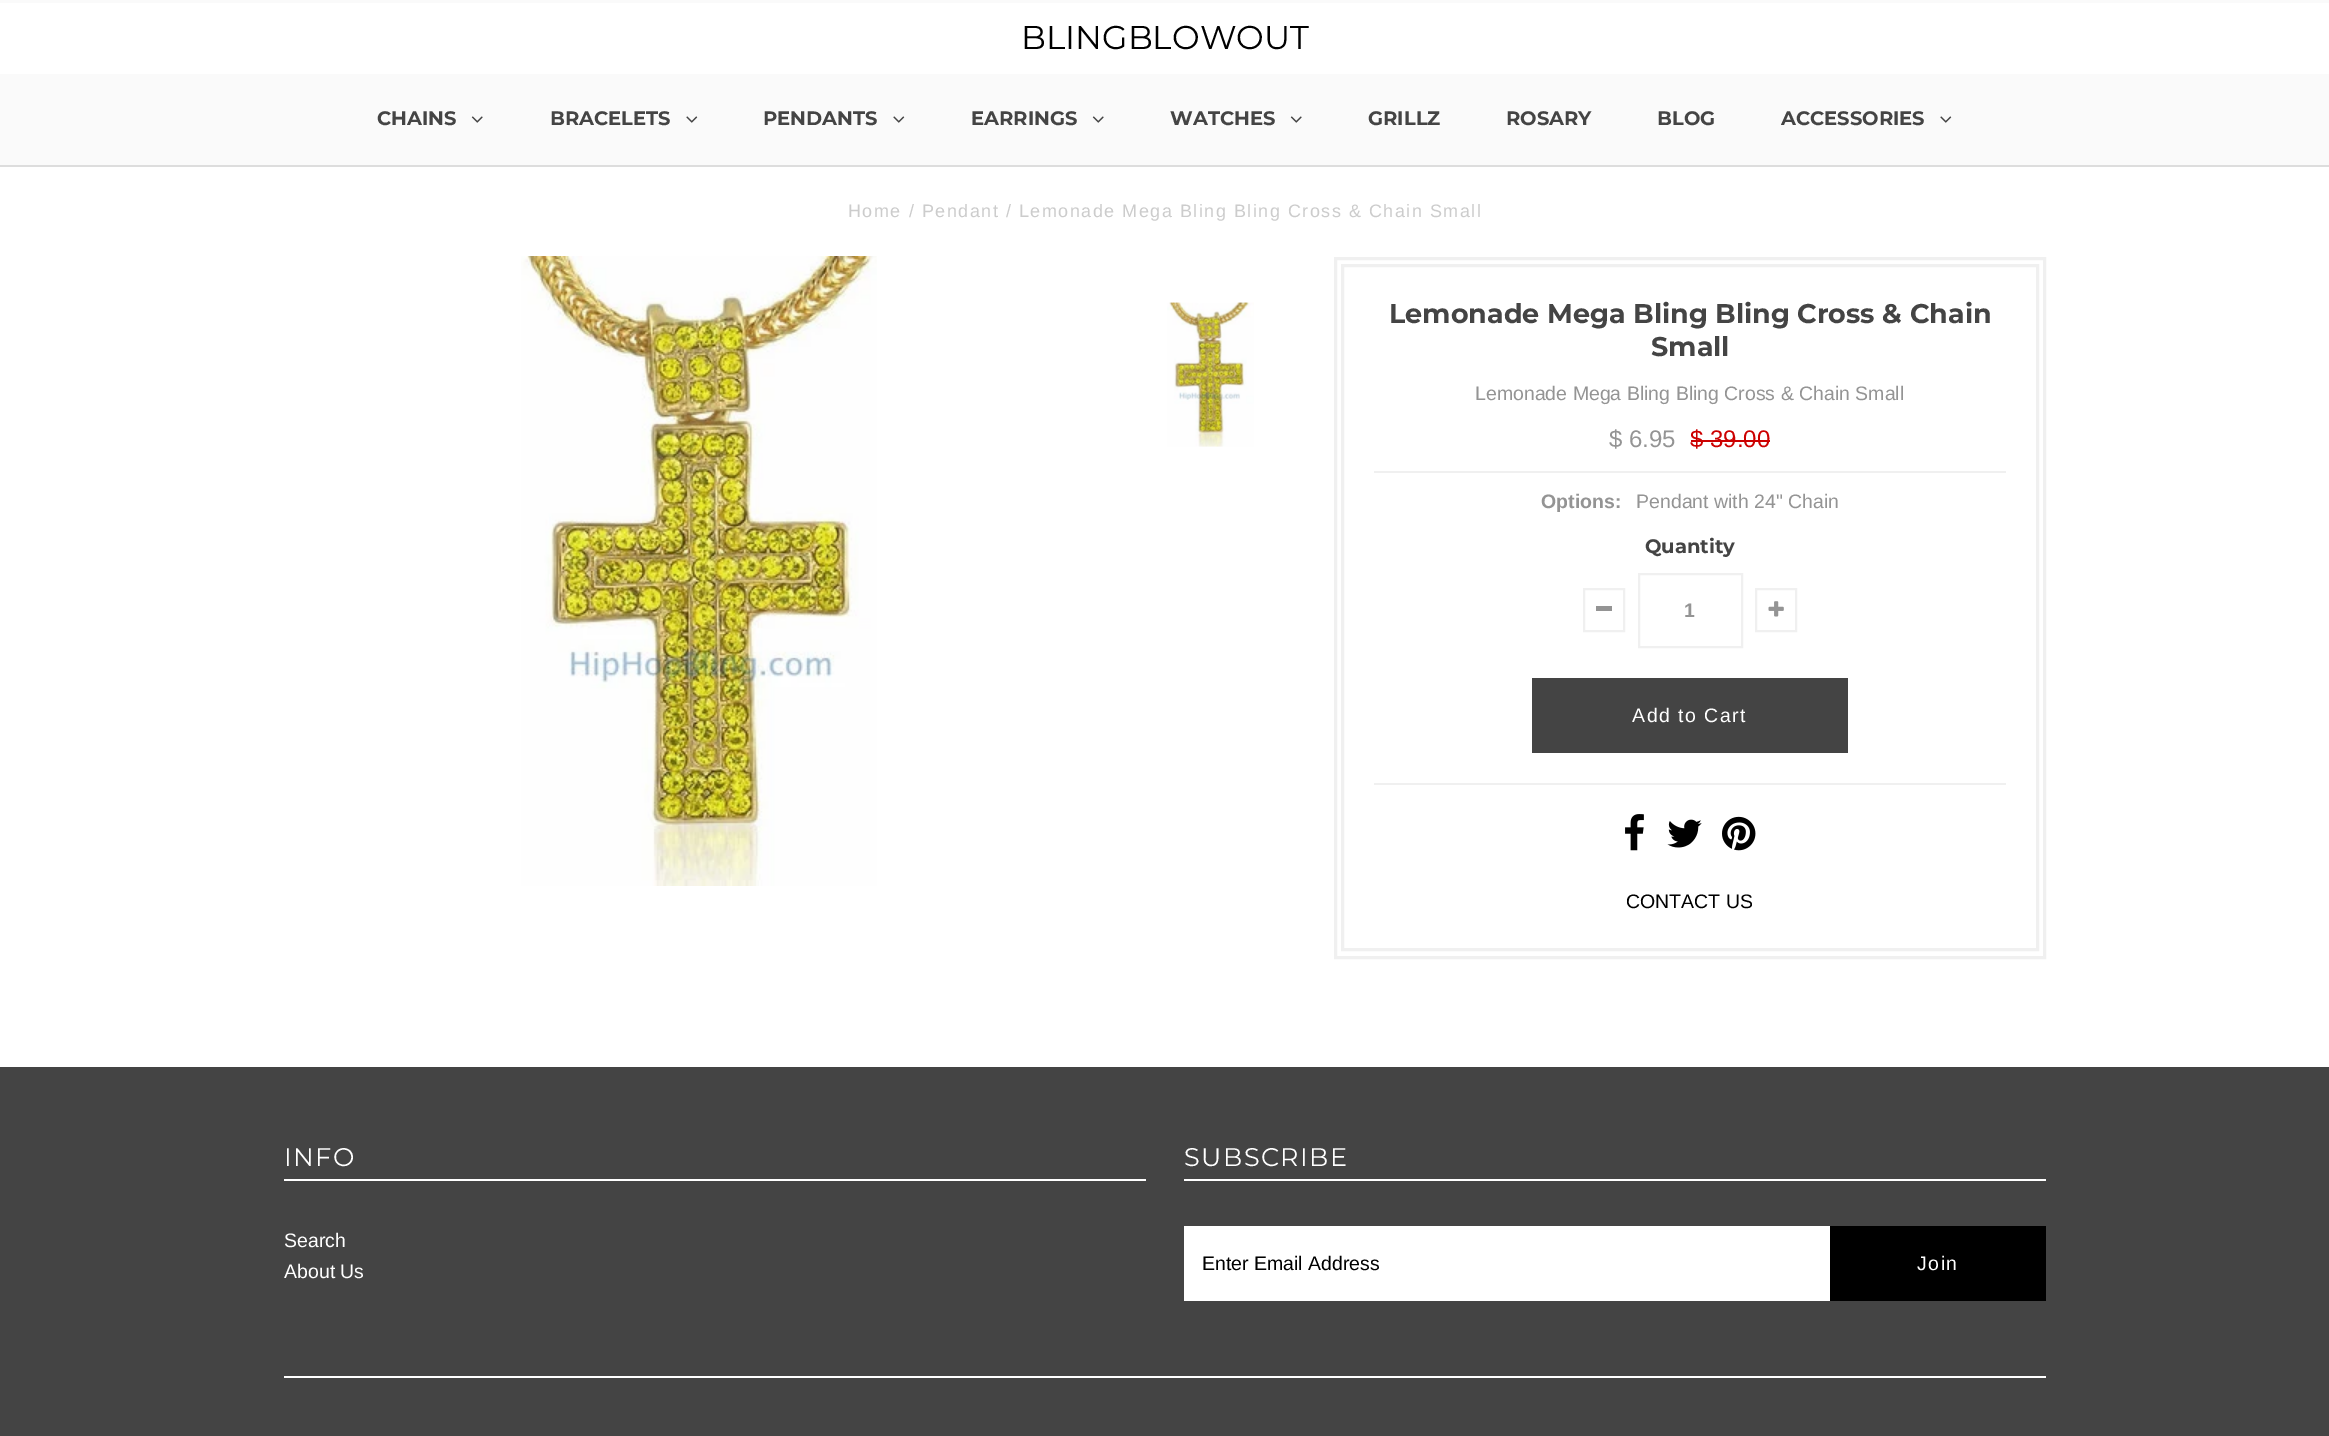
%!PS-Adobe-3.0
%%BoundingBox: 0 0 2329 1436
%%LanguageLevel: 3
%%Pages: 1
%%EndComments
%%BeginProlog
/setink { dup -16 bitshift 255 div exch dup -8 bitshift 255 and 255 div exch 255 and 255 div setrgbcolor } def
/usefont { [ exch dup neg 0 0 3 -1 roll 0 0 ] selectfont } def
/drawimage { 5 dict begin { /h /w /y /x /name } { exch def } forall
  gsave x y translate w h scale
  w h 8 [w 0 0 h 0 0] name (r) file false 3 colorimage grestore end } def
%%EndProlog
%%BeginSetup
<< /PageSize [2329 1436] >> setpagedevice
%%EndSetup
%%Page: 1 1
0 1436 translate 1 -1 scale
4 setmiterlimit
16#FFFFFF setink
0 0 2329 1436 rectfill
16#FAFAFA setink
0 0 2329 3 rectfill
/Montserrat-Regular 33 usefont
16#000000 setink
1021 49 moveto (BLINGBLOWOUT) show
16#FAFAFA setink
0 74 2329 91 rectfill
16#DDDDDD setink
0 165 2329 2 rectfill
/Montserrat-Bold 19.5 usefont
16#444444 setink
377 125 moveto (CHAINS) show
(img1.raw) 471 116 12 7 drawimage
550 125 moveto (BRACELETS) show
(img2.raw) 686 116 12 7 drawimage
763 125 moveto (PENDANTS) show
(img2.raw) 893 116 12 7 drawimage
971 125 moveto (EARRINGS) show
(img1.raw) 1092 116 12 7 drawimage
1170 125 moveto (WATCHES) show
(img1.raw) 1290 116 12 7 drawimage
[
    [(GRILLZ) 1368 125]
    [(ROSARY) 1506 125]
    [(BLOG) 1657 125]
    [(ACCESSORIES) 1781 125]
] { aload pop moveto show } forall
(img2.raw) 1940 116 12 7 drawimage
/LiberationSans-Regular 18 usefont
16#CCCCCC setink
848 217 moveto 1.5 0 (Home / Pendant / Lemonade Mega Bling Bling Cross & Chain Small) ashow
(img3.raw) 521 256 356 630 drawimage
(img4.raw) 1167 302 87 145 drawimage
16#F0F0F0 setink
3 setlinewidth
1335.5 258.5 709 699 rectstroke
1342.5 265.5 695 684 rectstroke
/Montserrat-Bold 27 usefont
16#444444 setink
1389 323 moveto (Lemonade Mega Bling Bling Cross & Chain) show
1651 356 moveto (Small) show
/LiberationSans-Regular 19.5 usefont
16#949494 setink
1475 400 moveto (Lemonade Mega Bling Bling Cross & Chain Small) show
/LiberationSans-Regular 24 usefont
1609 447 moveto ($ 6.95) show
16#CC0000 setink
1690 447 moveto ($ 39.00) show
[
    [1691 440 79 2 16#CC0000]
    [1374 471 632 2 16#F0F0F0]
    [1374 783 632 2 16#F0F0F0]
] { aload pop setink rectfill } forall
/LiberationSans-Bold 19.5 usefont
16#949494 setink
1541 508 moveto (Options:) show
/LiberationSans-Regular 19.5 usefont
1636 508 moveto (Pendant with 24" Chain) show
/Montserrat-Bold 19.5 usefont
16#444444 setink
1645 553 moveto (Quantity) show
16#F0F0F0 setink
2 setlinewidth
1584 589 40 42 rectstroke
16#949494 setink
1596 606 16 5 rectfill
16#F0F0F0 setink
1639 574 103 73 rectstroke
/LiberationSans-Bold 19.5 usefont
16#949494 setink
1684 617 moveto (1) show
16#F0F0F0 setink
1756 589 40 42 rectstroke
(img5.raw) 1768 601 16 16 drawimage
16#444444 setink
1532 678 316 75 rectfill
/LiberationSans-Regular 19.5 usefont
16#FFFFFF setink
1632 722 moveto 1.5 0 (Add to Cart) ashow
(img6.raw) 1625 814 19 37 drawimage
(img7.raw) 1667 819 35 29 drawimage
(img8.raw) 1722 816 34 35 drawimage
16#000000 setink
1626 908 moveto (CONTACT US) show
16#444444 setink
0 1067 2329 369 rectfill
16#FFFFFF setink
284 1179 862 2 rectfill
/Montserrat-Regular 25.5 usefont
284 1166 moveto 1.5 0 (INFO) ashow
/LiberationSans-Regular 19.5 usefont
284 1247 moveto (Search) show
284 1278 moveto (About Us) show
1184 1179 862 2 rectfill
/Montserrat-Regular 25.5 usefont
1184 1166 moveto 1.5 0 (SUBSCRIBE) ashow
1184 1226 646 75 rectfill
/LiberationSans-Regular 19.5 usefont
16#000000 setink
1202 1270 moveto (Enter Email Address) show
1830 1226 216 75 rectfill
16#FFFFFF setink
1917 1270 moveto 1.5 0 (Join) ashow
284 1376 1762 2 rectfill
showpage
%%EOF
